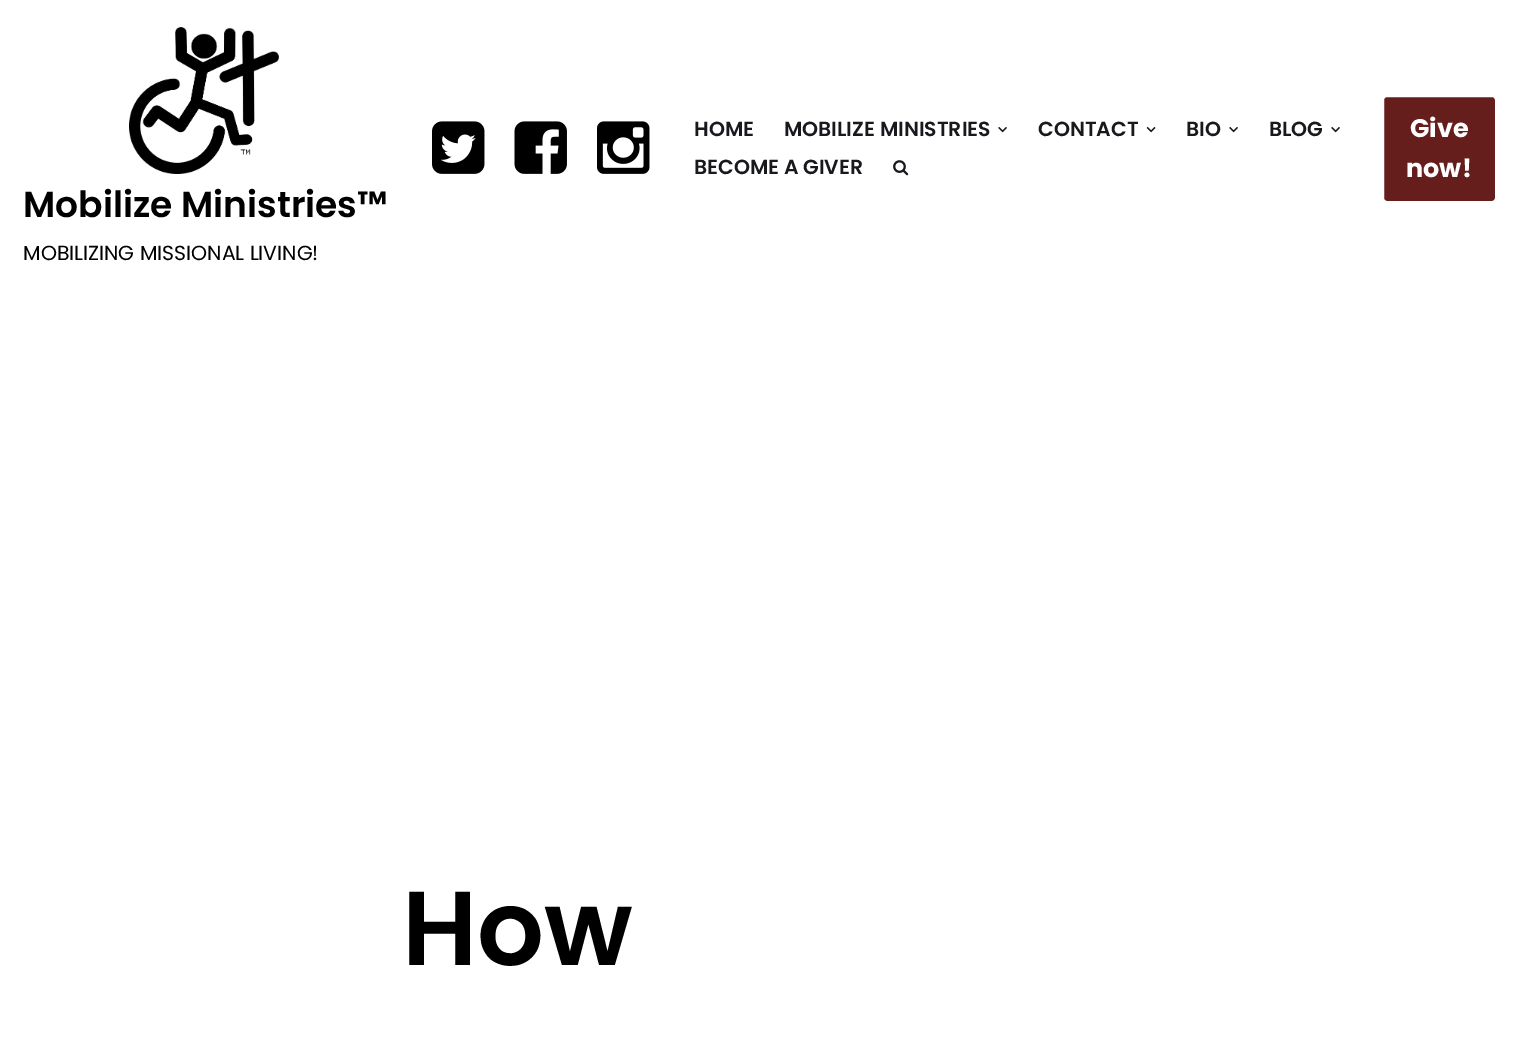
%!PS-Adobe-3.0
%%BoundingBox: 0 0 1519 1064
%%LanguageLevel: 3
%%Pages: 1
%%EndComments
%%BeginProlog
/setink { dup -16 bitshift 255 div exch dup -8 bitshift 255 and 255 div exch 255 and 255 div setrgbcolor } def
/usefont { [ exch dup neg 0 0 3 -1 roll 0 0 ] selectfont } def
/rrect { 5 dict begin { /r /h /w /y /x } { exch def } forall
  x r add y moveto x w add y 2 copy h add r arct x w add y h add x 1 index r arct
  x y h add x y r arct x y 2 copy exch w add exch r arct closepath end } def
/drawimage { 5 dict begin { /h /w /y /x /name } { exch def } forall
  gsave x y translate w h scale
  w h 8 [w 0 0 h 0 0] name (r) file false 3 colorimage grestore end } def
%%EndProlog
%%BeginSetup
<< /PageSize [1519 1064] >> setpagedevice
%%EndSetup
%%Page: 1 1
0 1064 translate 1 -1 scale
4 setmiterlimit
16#FFFFFF setink
0 0 1519 1064 rectfill
/Poppins-SemiBold 20.4 usefont
16#18191D setink
694 136 moveto (HOME) show
784 136 moveto (MOBILIZE MINISTRIES) show
(img1.raw) 998 127 9 6 drawimage
1038 136 moveto (CONTACT) show
(img2.raw) 1146 127 10 6 drawimage
1186 136 moveto (BIO) show
(img1.raw) 1229 127 9 6 drawimage
1269 136 moveto (BLOG) show
(img1.raw) 1331 127 9 6 drawimage
694 174 moveto (BECOME A GIVER) show
(img3.raw) 893 160 16 16 drawimage
16#651E1C setink
1383 96 113 106 4 rrect gsave fill grestore
16#FFFFFF setink
2 setlinewidth
stroke
/Poppins-Bold 25.5 usefont
1410 137 moveto (Give) show
1406 177 moveto (now!) show
(img4.raw) 432 121 53 53 drawimage
(img5.raw) 514 121 53 53 drawimage
(img6.raw) 597 121 53 53 drawimage
(img7.raw) 129 27 150 147 drawimage
/Poppins-SemiBold 36 usefont
16#000000 setink
23 217 moveto (Mobilize Ministries™) show
/Poppins-Regular 20.4 usefont
23 260 moveto (MOBILIZING MISSIONAL LIVING!) show
/Poppins-SemiBold 105 usefont
402 965 moveto (How) show
showpage
%%EOF
